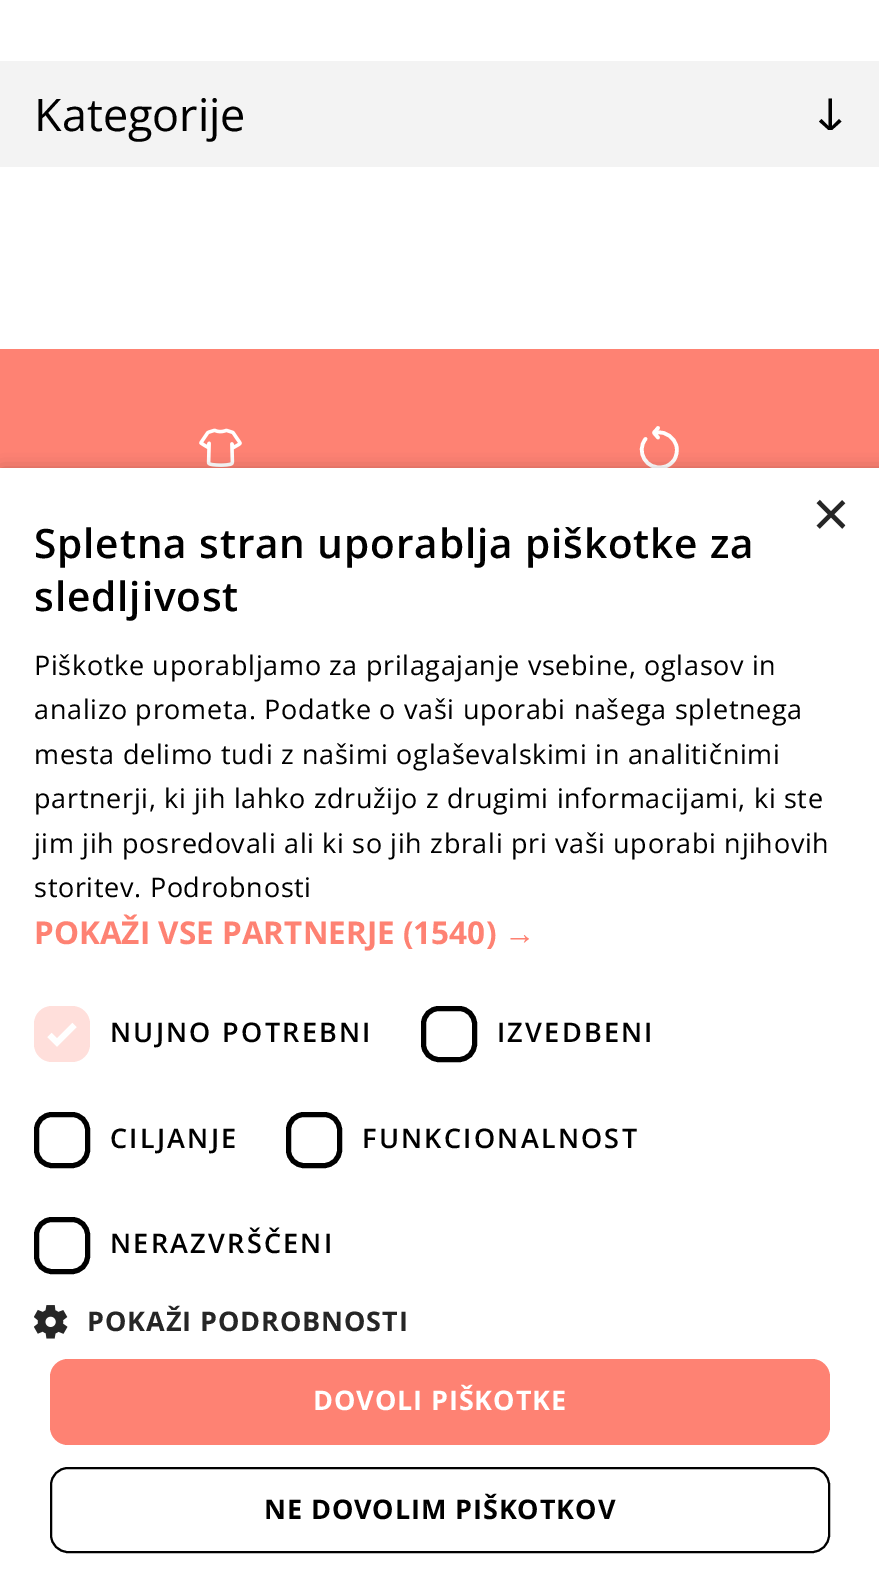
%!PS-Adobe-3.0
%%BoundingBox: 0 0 879 1596
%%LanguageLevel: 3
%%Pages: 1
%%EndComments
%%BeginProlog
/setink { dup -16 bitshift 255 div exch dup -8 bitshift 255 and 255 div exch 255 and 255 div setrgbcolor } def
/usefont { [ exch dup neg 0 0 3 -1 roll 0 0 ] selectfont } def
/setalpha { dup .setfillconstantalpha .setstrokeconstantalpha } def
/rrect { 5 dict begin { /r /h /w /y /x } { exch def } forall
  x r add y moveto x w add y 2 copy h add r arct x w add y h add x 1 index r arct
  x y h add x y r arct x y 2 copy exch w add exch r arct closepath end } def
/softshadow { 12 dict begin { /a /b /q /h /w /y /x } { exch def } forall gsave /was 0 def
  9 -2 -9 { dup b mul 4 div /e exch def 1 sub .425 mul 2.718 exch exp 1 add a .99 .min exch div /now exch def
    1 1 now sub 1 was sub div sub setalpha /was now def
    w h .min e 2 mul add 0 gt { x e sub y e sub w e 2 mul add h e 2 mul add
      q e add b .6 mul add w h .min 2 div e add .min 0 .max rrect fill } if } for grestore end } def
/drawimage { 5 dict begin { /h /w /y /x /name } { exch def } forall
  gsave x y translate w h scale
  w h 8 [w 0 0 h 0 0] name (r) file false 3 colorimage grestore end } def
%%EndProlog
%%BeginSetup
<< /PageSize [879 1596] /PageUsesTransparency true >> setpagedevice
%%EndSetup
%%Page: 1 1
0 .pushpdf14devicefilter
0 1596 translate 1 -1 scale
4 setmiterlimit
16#FFFFFF setink
0 0 879 1596 rectfill
16#F3F3F3 setink
0 61 879 106 rectfill
/OpenSans-Regular 45 usefont
16#000000 setink
34 131 moveto (Kategorije) show
841.5 121.5 moveto 839 119 lineto 832 126 lineto 832 98.5 lineto 828.5 98.5 lineto 828.5 126 lineto 821.5 119 lineto 819 121.5 lineto 828.5 130 lineto 832 130 lineto closepath fill
16#FE8273 setink
0 349 879 119 rectfill
(img1.raw) 199 428 43 39 drawimage
16#FFFFFF setink
3.6 setlinewidth
1 setlinecap
657.5 432.5 moveto 666 431.5 674.5 437.5 676.5 446.5 curveto 677.5 451 676.5 456 674 460 curveto 671.5 463.5 667.5 466.5 663 467 curveto 646.5 470.5 635.5 451.5 645.5 439 curveto 658 428 moveto 655.5 431 lineto 654 432.5 653.5 432.5 655 434 curveto 658 437.5 lineto stroke
16#000000 setink
2 473 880 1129 0 9 0.35 softshadow
16#FFFFFF setink
0 468 879 1128 rectfill
/LiberationSans-Regular 65 usefont
16#262626 setink
812 536 moveto (×) show
/OpenSans-SemiBold 40.5 usefont
16#000000 setink
34 558 moveto 0.9 0 (Spletna stran uporablja piškotke za) ashow
34 611 moveto 0.9 0 (sledljivost) ashow
/OpenSans-Regular 27 usefont
34 675 moveto 0.67 0 (Piškotke uporabljamo za prilagajanje vsebine, oglasov in) ashow
34 719 moveto 0.67 0 (analizo prometa. Podatke o vaši uporabi našega spletnega) ashow
34 764 moveto 0.67 0 (mesta delimo tudi z našimi oglaševalskimi in analitičnimi) ashow
34 808 moveto 0.67 0 (partnerji, ki jih lahko združijo z drugimi informacijami, ki ste) ashow
34 853 moveto 0.67 0 (jim jih posredovali ali ki so jih zbrali pri vaši uporabi njihovih) ashow
34 897 moveto 0.67 0 (storitev. Podrobnosti) ashow
/OpenSans-Bold 31.5 usefont
16#FE8273 setink
34 944 moveto (POKAŽI VSE PARTNERJE \(1540\)) show
/LiberationSans-Bold 31.5 usefont
504 944 moveto (→) show
16#FFDFDB setink
34 1006 56 56 18 rrect fill
16#FFFFFF setink
5.9 setlinewidth
0 setlinecap
49.5 1035 moveto 57 1042.5 lineto 74.5 1025 lineto stroke
/OpenSans-SemiBold 27 usefont
16#000000 setink
110 1042 moveto 2.25 0 (NUJNO POTREBNI) ashow
5 setlinewidth
423.5 1008.5 51 51 15.5 rrect stroke
497 1042 moveto 2.25 0 (IZVEDBENI) ashow
36.5 1114.5 51 51 15.5 rrect stroke
110 1148 moveto 2.25 0 (CILJANJE) ashow
288.5 1114.5 51 51 15.5 rrect stroke
362 1148 moveto 2.25 0 (FUNKCIONALNOST) ashow
36.5 1219.5 51 52 15.5 rrect stroke
110 1253 moveto 2.25 0 (NERAZVRŠČENI) ashow
(img2.raw) 34 1305 34 34 drawimage
/OpenSans-Bold 27 usefont
16#262626 setink
87 1331 moveto 0.9 0 (POKAŽI PODROBNOSTI) ashow
16#FE8273 setink
50 1359 780 86 18 rrect fill
16#FFFFFF setink
313 1410 moveto 0.9 0 (DOVOLI PIŠKOTKE) ashow
16#000000 setink
2 setlinewidth
51 1468 778 84 17 rrect stroke
264 1519 moveto 0.9 0 (NE DOVOLIM PIŠKOTKOV) ashow
.poppdf14devicefilter showpage
%%EOF
